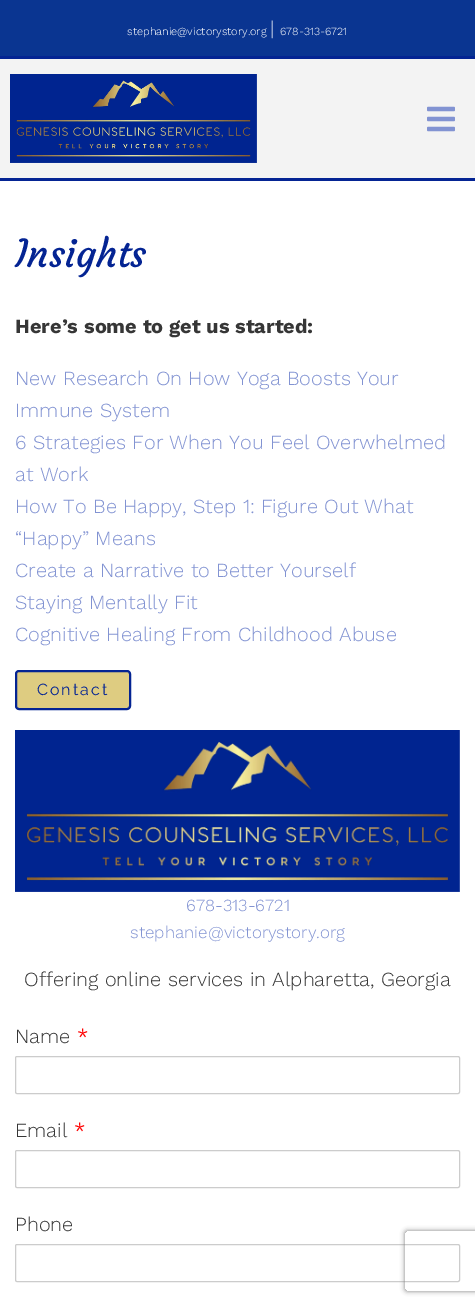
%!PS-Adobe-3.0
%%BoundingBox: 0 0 475 1305
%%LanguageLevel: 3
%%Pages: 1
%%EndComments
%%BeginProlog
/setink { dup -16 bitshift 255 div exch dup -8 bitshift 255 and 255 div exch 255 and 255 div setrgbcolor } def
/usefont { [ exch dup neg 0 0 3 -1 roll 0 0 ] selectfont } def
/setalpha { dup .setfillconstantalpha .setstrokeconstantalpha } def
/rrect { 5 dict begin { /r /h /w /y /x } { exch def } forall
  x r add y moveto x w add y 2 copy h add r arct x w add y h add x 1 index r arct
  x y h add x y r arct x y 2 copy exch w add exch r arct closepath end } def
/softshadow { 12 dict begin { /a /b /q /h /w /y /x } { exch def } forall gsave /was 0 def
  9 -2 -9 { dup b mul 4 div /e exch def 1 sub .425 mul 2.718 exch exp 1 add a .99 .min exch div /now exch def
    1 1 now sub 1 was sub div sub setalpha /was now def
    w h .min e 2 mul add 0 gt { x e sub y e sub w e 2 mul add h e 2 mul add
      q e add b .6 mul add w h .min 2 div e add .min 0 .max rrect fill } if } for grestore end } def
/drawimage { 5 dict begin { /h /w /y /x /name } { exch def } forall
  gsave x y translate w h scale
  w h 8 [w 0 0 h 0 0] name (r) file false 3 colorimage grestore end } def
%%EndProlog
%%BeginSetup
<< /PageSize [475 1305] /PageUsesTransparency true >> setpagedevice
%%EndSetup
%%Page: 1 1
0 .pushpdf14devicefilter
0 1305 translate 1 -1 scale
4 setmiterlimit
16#FFFFFF setink
0 0 475 1305 rectfill
16#0A3591 setink
0 0 475 56 rectfill
/WorkSans-Light 11 usefont
16#FFFFFF setink
127 35 moveto (stephanie@victorystory.org) show
/WorkSans-Light 20 usefont
270 35 moveto (|) show
/WorkSans-Light 11 usefont
280 35 moveto (678-313-6721) show
[
    [0 59 475 119 16#F3F3F3]
    [0 56 475 3 16#042493]
    [0 178 475 3 16#042493]
] { aload pop setink rectfill } forall
(img1.raw) 10 74 247 89 drawimage
(img2.raw) 427 106 28 26 drawimage
/Courgette-Regular 38 usefont
15 267 moveto (Insights) show
/WorkSans-Bold 20 usefont
16#363636 setink
15 333 moveto (Here’s some to get us started:) show
/WorkSans-Light 20 usefont
16#8293D2 setink
[
    [(New Research On How Yoga Boosts Your) 15 385]
    [(Immune System) 15 417]
    [(6 Strategies For When You Feel Overwhelmed) 15 449]
    [(at Work) 15 481]
    [(How To Be Happy, Step 1: Figure Out What) 15 513]
    [(“Happy” Means) 15 545]
    [(Create a Narrative to Better Yourself) 15 577]
    [(Staying Mentally Fit) 15 609]
    [(Cognitive Healing From Childhood Abuse) 15 641]
] { aload pop moveto show } forall
16#DECC81 setink
16 671 114 38 3 rrect gsave fill grestore
16#042493 setink
2 setlinewidth
stroke
/Raleway-Regular 16 usefont
37 695 moveto 2 0 (Contact) ashow
(img3.raw) 15 730 445 162 drawimage
/WorkSans-Light 17 usefont
16#8293D2 setink
186 911 moveto (678-313-6721) show
130 938 moveto (stephanie@victorystory.org) show
/WorkSans-Light 20 usefont
16#363636 setink
24 986 moveto (Offering online services in Alpharetta, Georgia) show
15 1043 moveto (Name) show
/WorkSans-Regular 20 usefont
16#FF0000 setink
77 1043 moveto (*) show
16#CCCCCC setink
1 setlinewidth
15.5 1056.5 444 37 1.5 rrect stroke
/WorkSans-Light 20 usefont
16#363636 setink
15 1137 moveto (Email) show
/WorkSans-Regular 20 usefont
16#FF0000 setink
74 1137 moveto (*) show
16#CCCCCC setink
15.5 1150.5 444 37 1.5 rrect stroke
/WorkSans-Light 20 usefont
16#363636 setink
15 1231 moveto (Phone) show
16#CCCCCC setink
15.5 1244.5 444 37 1.5 rrect stroke
gsave
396 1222 moveto 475 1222 lineto 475 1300 lineto 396 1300 lineto closepath 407 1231 moveto 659 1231 lineto 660 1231 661 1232 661 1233 curveto 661 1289 lineto 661 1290 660 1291 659 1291 curveto 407 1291 lineto 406 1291 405 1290 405 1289 curveto 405 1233 lineto 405 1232 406 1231 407 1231 curveto closepath eoclip newpath
16#808080 setink
405 1231 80 60 2 2.5 1 softshadow
grestore
.poppdf14devicefilter showpage
%%EOF
